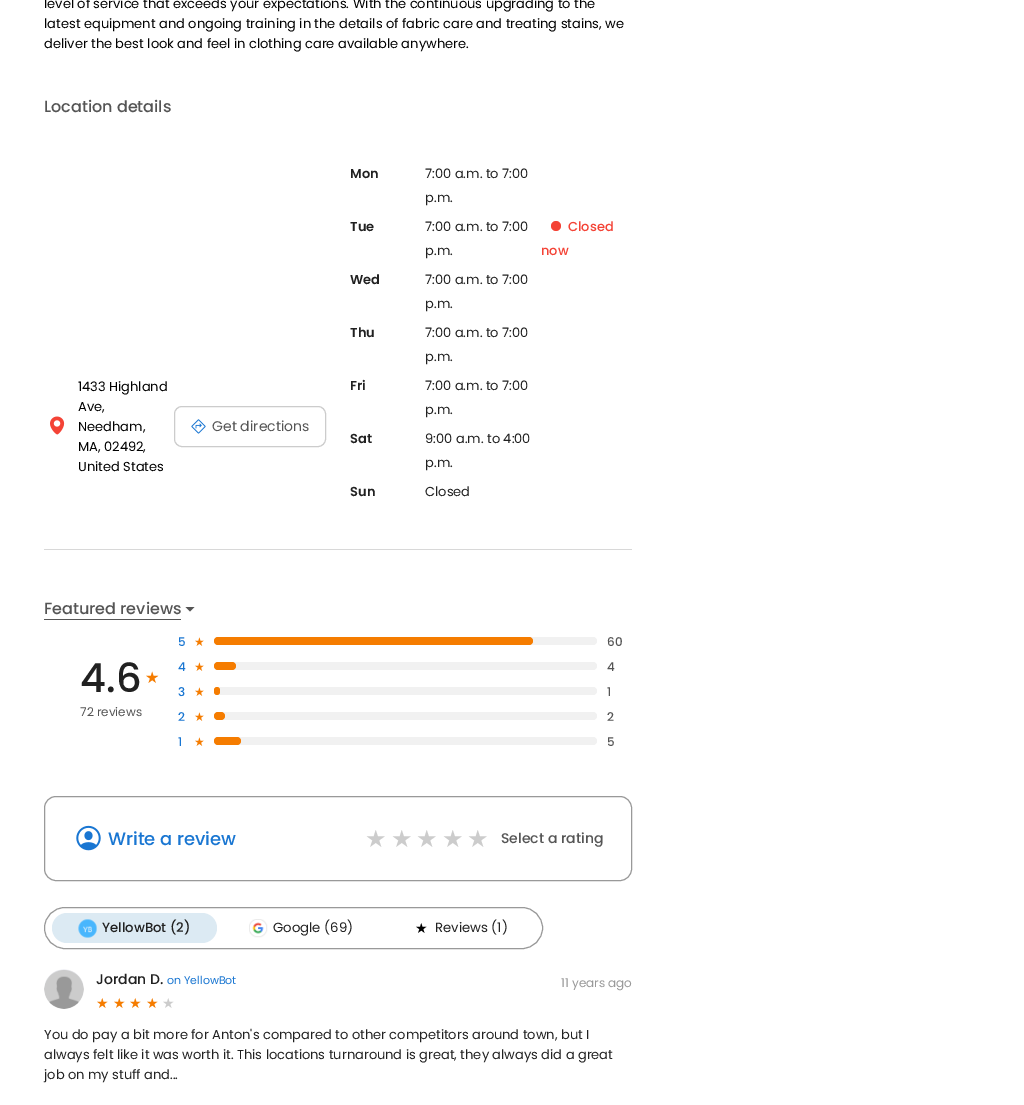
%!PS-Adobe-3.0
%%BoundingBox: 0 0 1024 1105
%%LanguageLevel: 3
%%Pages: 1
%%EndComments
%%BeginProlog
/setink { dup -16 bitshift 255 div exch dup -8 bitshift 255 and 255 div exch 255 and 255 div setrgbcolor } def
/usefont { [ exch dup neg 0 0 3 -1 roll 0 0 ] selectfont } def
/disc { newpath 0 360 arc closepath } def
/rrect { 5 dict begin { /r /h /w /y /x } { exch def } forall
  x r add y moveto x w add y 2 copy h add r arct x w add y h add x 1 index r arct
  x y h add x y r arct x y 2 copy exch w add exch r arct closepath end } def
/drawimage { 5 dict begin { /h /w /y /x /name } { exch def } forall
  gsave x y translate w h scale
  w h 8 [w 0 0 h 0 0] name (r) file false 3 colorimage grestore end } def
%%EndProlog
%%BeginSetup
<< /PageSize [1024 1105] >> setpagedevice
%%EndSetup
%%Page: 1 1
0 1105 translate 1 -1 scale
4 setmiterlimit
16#FFFFFF setink
0 0 1024 1105 rectfill
/Poppins-Regular 13 usefont
16#000000 setink
[
    [(level of service that exceeds your expectations. With the continuous upgrading to the) 44 8]
    [(latest equipment and ongoing training in the details of fabric care and treating stains, we) 44 28]
    [(deliver the best look and feel in clothing care available anywhere.) 44 48]
] { aload pop moveto show } forall
/Poppins-Medium 16 usefont
16#555555 setink
44 112 moveto (Location details) show
(img1.raw) 50 416 15 19 drawimage
/Poppins-Regular 13 usefont
16#000000 setink
[
    [(1433 Highland) 78 391]
    [(Ave,) 78 411]
    [(Needham,) 78 431]
    [(MA, 02492,) 78 451]
    [(United States) 78 471]
] { aload pop moveto show } forall
16#CCCCCC setink
174.5 406.5 151 40 7.5 rrect stroke
(img2.raw) 191 419 15 15 drawimage
/Poppins-Regular 14 usefont
16#555555 setink
212 431 moveto (Get directions) show
/Poppins-SemiBold 13 usefont
16#212121 setink
350 178 moveto (Mon) show
/Poppins-Regular 13 usefont
425 178 moveto (7:00 a.m. to 7:00) show
425 202 moveto (p.m.) show
/Poppins-SemiBold 13 usefont
350 231 moveto (Tue) show
/Poppins-Regular 13 usefont
425 231 moveto (7:00 a.m. to 7:00) show
425 255 moveto (p.m.) show
16#F44336 setink
556 226 5 disc fill
/Poppins-Medium 13 usefont
568 231 moveto (Closed) show
541 255 moveto (now) show
/Poppins-SemiBold 13 usefont
16#212121 setink
350 284 moveto (Wed) show
/Poppins-Regular 13 usefont
425 284 moveto (7:00 a.m. to 7:00) show
425 308 moveto (p.m.) show
/Poppins-SemiBold 13 usefont
350 337 moveto (Thu) show
/Poppins-Regular 13 usefont
425 337 moveto (7:00 a.m. to 7:00) show
425 361 moveto (p.m.) show
/Poppins-SemiBold 13 usefont
350 390 moveto (Fri) show
/Poppins-Regular 13 usefont
425 390 moveto (7:00 a.m. to 7:00) show
425 414 moveto (p.m.) show
/Poppins-SemiBold 13 usefont
350 443 moveto (Sat) show
/Poppins-Regular 13 usefont
425 443 moveto (9:00 a.m. to 4:00) show
425 467 moveto (p.m.) show
/Poppins-SemiBold 13 usefont
350 496 moveto (Sun) show
/Poppins-Regular 13 usefont
425 496 moveto (Closed) show
16#D8D8D8 setink
44 549 588 1 rectfill
16#555555 setink
44 619 137 1 rectfill
/Poppins-Medium 16 usefont
44 614 moveto (Featured reviews) show
185.5 607 moveto 190 611.5 lineto 194.5 607 lineto closepath fill
/Poppins-Medium 40 usefont
16#212121 setink
80 692 moveto (4.6) show
/DejaVuSans-Regular 16 usefont
16#F57C00 setink
145 683 moveto (★) show
/Poppins-Regular 12 usefont
16#555555 setink
80 716 moveto (72 reviews) show
/Poppins-Medium 12 usefont
16#1976D2 setink
178 646 moveto (5) show
/DejaVuSans-Regular 12 usefont
16#F57C00 setink
194 646 moveto (★) show
16#F1F1F1 setink
214 637 383 8 4 rrect fill
16#F57C00 setink
214 637 319 8 4 rrect fill
/Poppins-Medium 12 usefont
16#555555 setink
607 646 moveto (60) show
16#1976D2 setink
178 671 moveto (4) show
/DejaVuSans-Regular 12 usefont
16#F57C00 setink
194 671 moveto (★) show
16#F1F1F1 setink
214 662 383 8 4 rrect fill
16#F57C00 setink
214 662 22 8 4 rrect fill
/Poppins-Medium 12 usefont
16#555555 setink
607 671 moveto (4) show
16#1976D2 setink
178 696 moveto (3) show
/DejaVuSans-Regular 12 usefont
16#F57C00 setink
194 696 moveto (★) show
16#F1F1F1 setink
214 687 383 8 4 rrect fill
16#F57C00 setink
214 687 6 8 3 rrect fill
/Poppins-Medium 12 usefont
16#555555 setink
607 696 moveto (1) show
16#1976D2 setink
178 721 moveto (2) show
/DejaVuSans-Regular 12 usefont
16#F57C00 setink
194 721 moveto (★) show
16#F1F1F1 setink
214 712 383 8 4 rrect fill
16#F57C00 setink
214 712 11 8 4 rrect fill
/Poppins-Medium 12 usefont
16#555555 setink
607 721 moveto (2) show
16#1976D2 setink
178 746 moveto (1) show
/DejaVuSans-Regular 12 usefont
16#F57C00 setink
194 746 moveto (★) show
16#F1F1F1 setink
214 737 383 8 4 rrect fill
16#F57C00 setink
214 737 27 8 4 rrect fill
/Poppins-Medium 12 usefont
16#555555 setink
607 746 moveto (5) show
16#999999 setink
44.5 796.5 587 84 11.5 rrect stroke
(img3.raw) 76 825 25 26 drawimage
/Poppins-Medium 18 usefont
16#1976D2 setink
108 845 moveto (Write a review) show
/DejaVuSans-Regular 24 usefont
16#CCCCCC setink
[
    [(★) 365 847]
    [(★) 391 847]
    [(★) 416 847]
    [(★) 442 847]
    [(★) 467 847]
] { aload pop moveto show } forall
/Poppins-Medium 14 usefont
16#555555 setink
501 843 moveto (Select a rating) show
16#999999 setink
44.5 907.5 498 41 20.5 rrect stroke
16#DCEAF3 setink
52 913 165 30 15 rrect fill
(img4.raw) 78 919 19 19 drawimage
/Poppins-Medium 13.25 usefont
16#212121 setink
102 932 moveto (YellowBot \(2\)) show
(img5.raw) 249 919 19 19 drawimage
/Poppins-Regular 13.25 usefont
273 932 moveto (Google \(69\)) show
/DejaVuSans-Regular 14 usefont
16#000000 setink
415 933 moveto (★) show
/Poppins-Regular 13.25 usefont
16#212121 setink
435 932 moveto (Reviews \(1\)) show
(img6.raw) 44 969 40 40 drawimage
/Poppins-Medium 14 usefont
96 984 moveto (Jordan D.) show
/Poppins-Regular 11 usefont
16#1976D2 setink
167 984 moveto (on YellowBot) show
/DejaVuSans-Regular 14 usefont
16#F57C00 setink
[
    [(★) 96 1008]
    [(★) 113 1008]
    [(★) 129 1008]
    [(★) 146 1008]
] { aload pop moveto show } forall
16#CCCCCC setink
162 1008 moveto (★) show
/Poppins-Regular 12 usefont
16#999999 setink
561 987 moveto (11 years ago) show
/Poppins-Regular 13 usefont
16#212121 setink
[
    [(You do pay a bit more for Anton's compared to other competitors around town, but I) 44 1039]
    [(always felt like it was worth it. This locations turnaround is great, they always did a great) 44 1059]
    [(job on my stuff and...) 44 1079]
] { aload pop moveto show } forall
showpage
%%EOF
